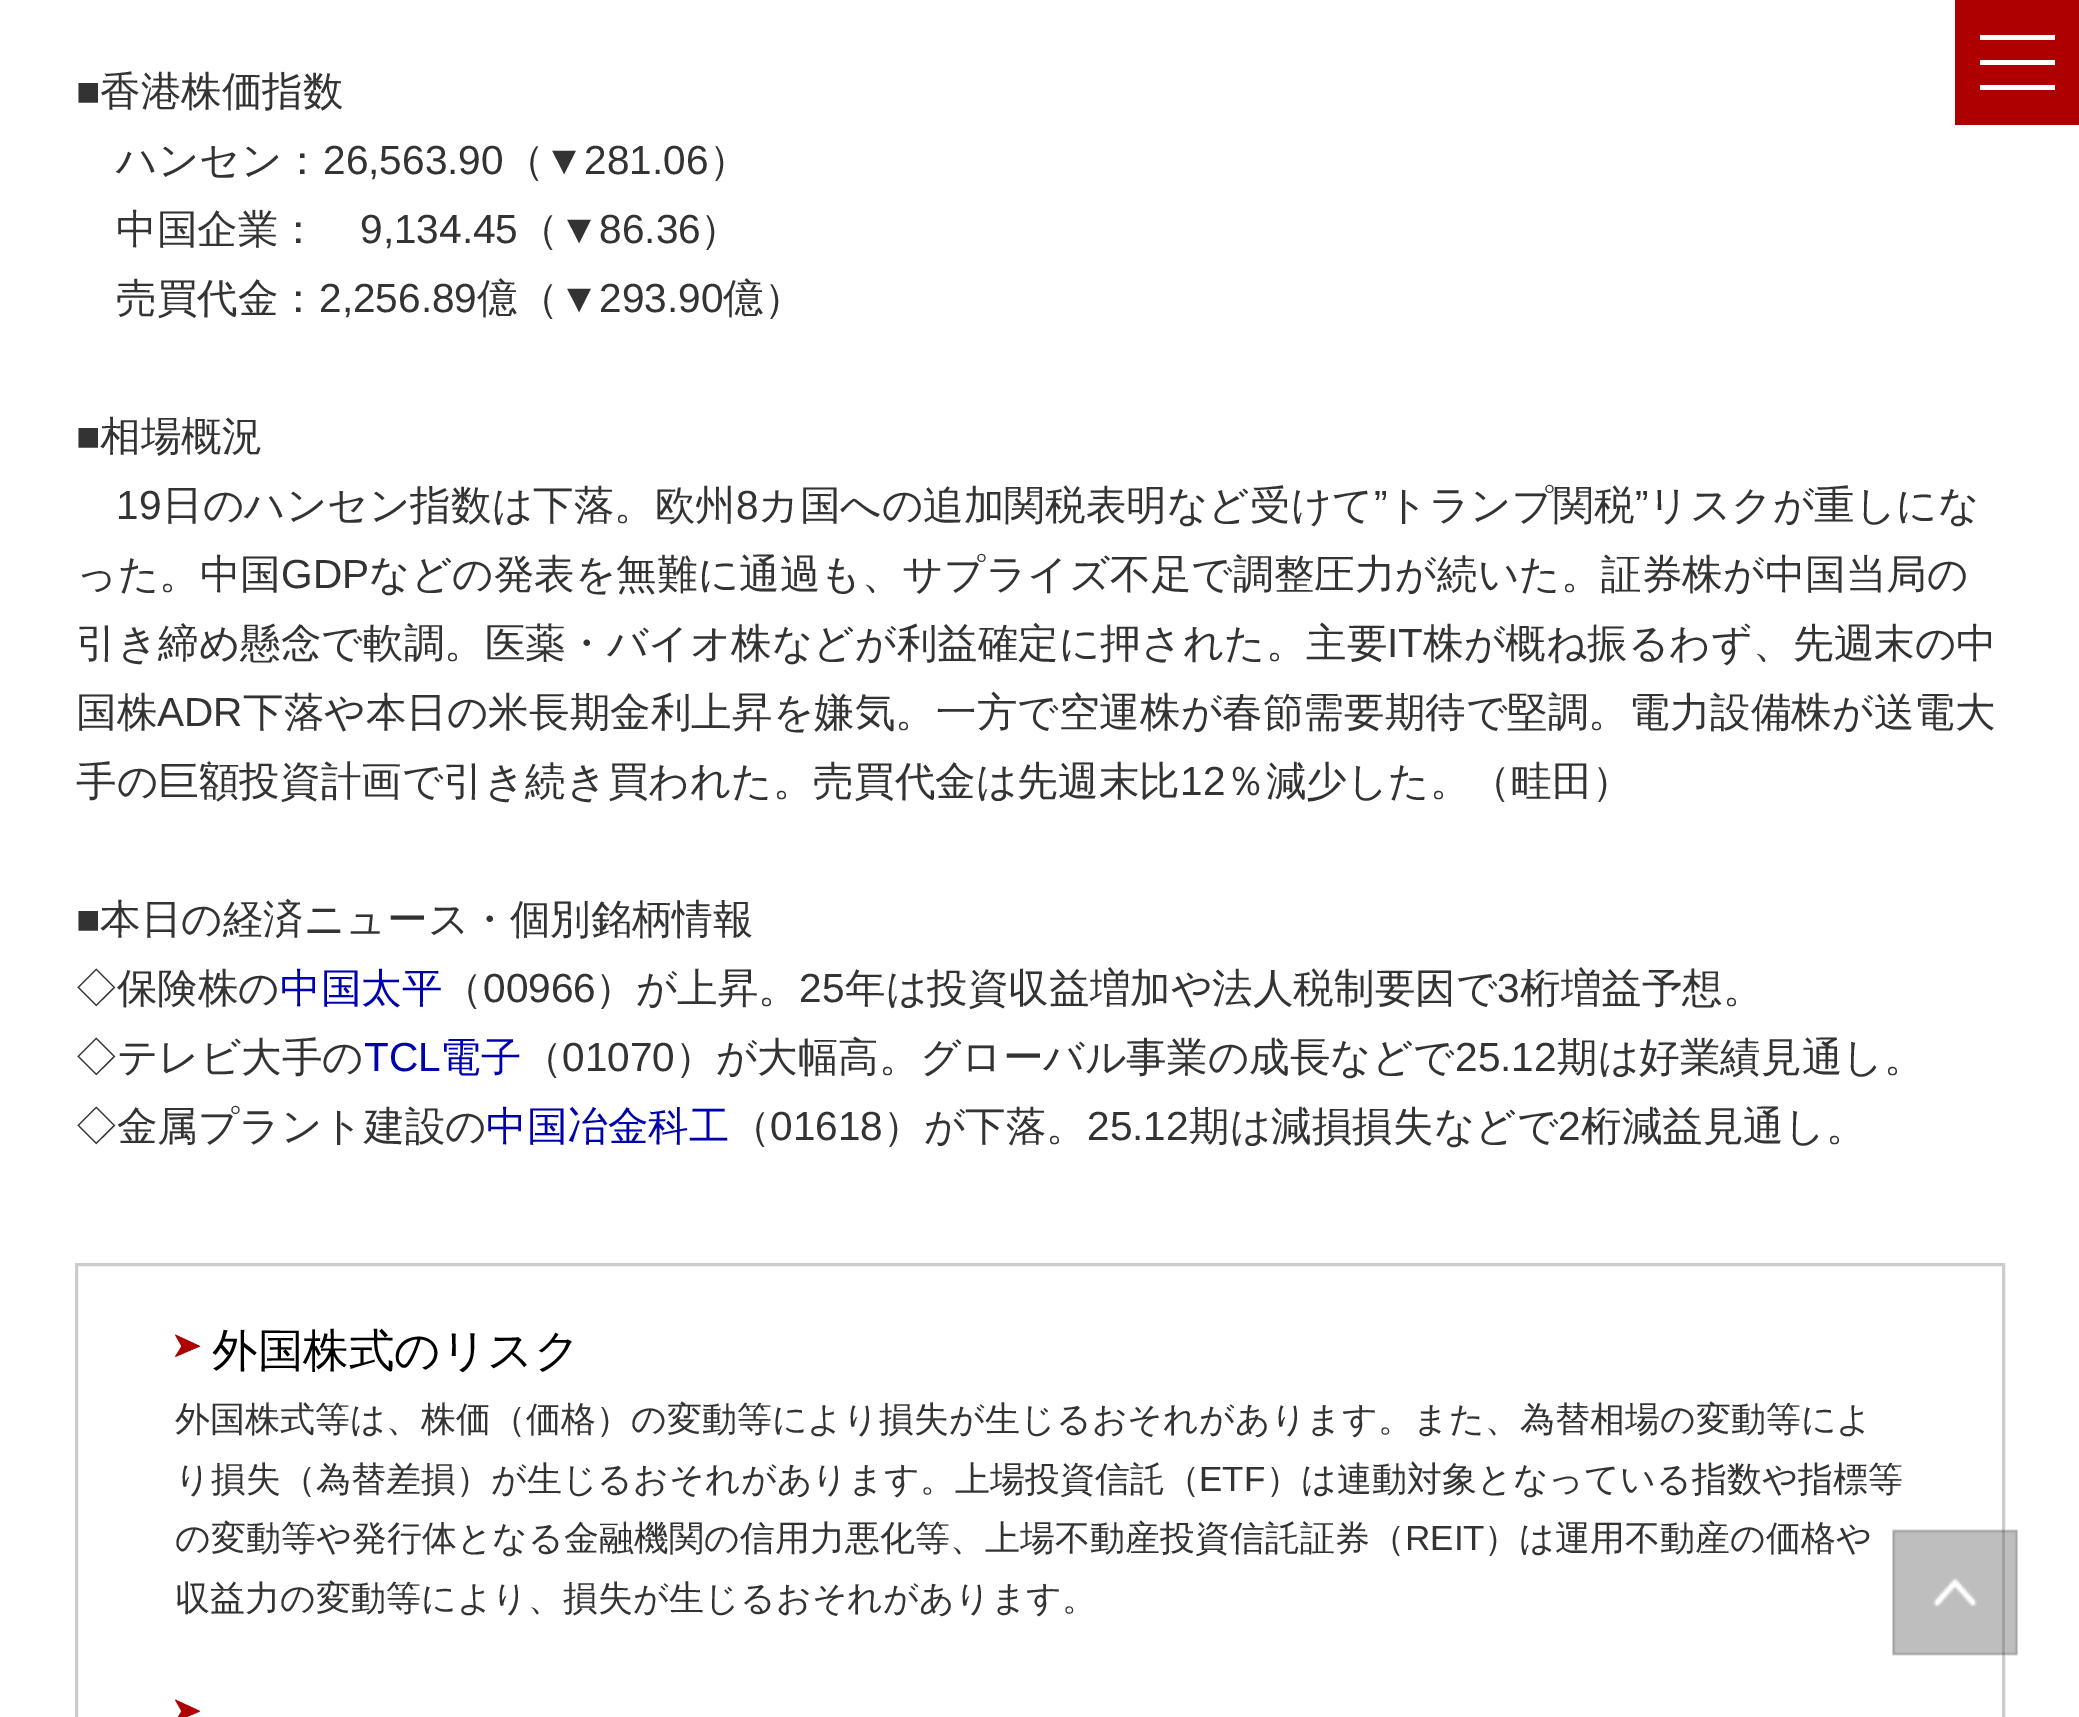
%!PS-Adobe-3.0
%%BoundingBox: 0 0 2079 1717
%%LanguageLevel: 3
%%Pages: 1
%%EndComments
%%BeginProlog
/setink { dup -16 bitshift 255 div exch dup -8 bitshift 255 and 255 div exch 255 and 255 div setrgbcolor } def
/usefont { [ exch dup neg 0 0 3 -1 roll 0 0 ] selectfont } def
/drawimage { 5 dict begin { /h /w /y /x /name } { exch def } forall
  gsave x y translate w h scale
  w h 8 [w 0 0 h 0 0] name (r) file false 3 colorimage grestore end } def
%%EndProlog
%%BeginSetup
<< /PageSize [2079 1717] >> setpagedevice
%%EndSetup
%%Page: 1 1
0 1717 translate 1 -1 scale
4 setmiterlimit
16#FFFFFF setink
0 0 2079 1717 rectfill
/LiberationSans-Regular 40.6 usefont
16#333333 setink
76 105 moveto (■) show
/WenQuanYiZenHei-Medium 40.6 usefont
100 105 moveto (香港株価指数) show
116 174 moveto (ハンセン：) show
/LiberationSans-Regular 40.6 usefont
323 174 moveto (26,563.90) show
/WenQuanYiZenHei-Medium 40.6 usefont
504 174 moveto (（) show
/LiberationSans-Regular 40.6 usefont
544 174 moveto (▼281.06) show
/WenQuanYiZenHei-Medium 40.6 usefont
709 174 moveto (）) show
116 243 moveto (中国企業：) show
/LiberationSans-Regular 40.6 usefont
360 243 moveto (9,134.45) show
/WenQuanYiZenHei-Medium 40.6 usefont
518 243 moveto (（) show
/LiberationSans-Regular 40.6 usefont
559 243 moveto (▼86.36) show
/WenQuanYiZenHei-Medium 40.6 usefont
700 243 moveto (）) show
116 312 moveto (売買代金：) show
/LiberationSans-Regular 40.6 usefont
319 312 moveto (2,256.89) show
/WenQuanYiZenHei-Medium 40.6 usefont
477 312 moveto (億（) show
/LiberationSans-Regular 40.6 usefont
559 312 moveto (▼293.90) show
/WenQuanYiZenHei-Medium 40.6 usefont
723 312 moveto (億）) show
/LiberationSans-Regular 40.6 usefont
76 450 moveto (■) show
/WenQuanYiZenHei-Medium 40.6 usefont
100 450 moveto (相場概況) show
/LiberationSans-Regular 40.6 usefont
116 519 moveto (19) show
/WenQuanYiZenHei-Medium 40.6 usefont
162 519 moveto (日のハンセン指数は下落。欧州) show
/LiberationSans-Regular 40.6 usefont
736 519 moveto (8) show
/WenQuanYiZenHei-Medium 40.6 usefont
758 519 moveto (カ国への追加関税表明など受けて) show
/LiberationSans-Regular 40.6 usefont
1374 519 moveto (”) show
/WenQuanYiZenHei-Medium 40.6 usefont
1387 519 moveto (トランプ関税) show
/LiberationSans-Regular 40.6 usefont
1635 519 moveto (”) show
/WenQuanYiZenHei-Medium 40.6 usefont
1648 519 moveto (リスクが重しにな) show
76 588 moveto (った。中国) show
/LiberationSans-Regular 40.6 usefont
281 588 moveto (GDP) show
/WenQuanYiZenHei-Medium 40.6 usefont
369 588 moveto (などの発表を無難に通過も、サプライズ不足で調整圧力が続いた。証券株が中国当局の) show
76 657 moveto (引き締め懸念で軟調。医薬・バイオ株などが利益確定に押された。主要) show
/LiberationSans-Regular 40.6 usefont
1387 657 moveto (IT) show
/WenQuanYiZenHei-Medium 40.6 usefont
1423 657 moveto (株が概ね振るわず、先週末の中) show
76 726 moveto (国株) show
/LiberationSans-Regular 40.6 usefont
157 726 moveto (ADR) show
/WenQuanYiZenHei-Medium 40.6 usefont
243 726 moveto (下落や本日の米長期金利上昇を嫌気。一方で空運株が春節需要期待で堅調。電力設備株が送電大) show
76 795 moveto (手の巨額投資計画で引き続き買われた。売買代金は先週末比) show
/LiberationSans-Regular 40.6 usefont
1180 795 moveto (12) show
/WenQuanYiZenHei-Medium 40.6 usefont
1225 795 moveto (％減少した。（畦田）) show
/LiberationSans-Regular 40.6 usefont
76 933 moveto (■) show
/WenQuanYiZenHei-Medium 40.6 usefont
100 933 moveto (本日の経済ニュース・個別銘柄情報) show
76 1002 moveto (◇保険株の) show
16#0001AE setink
280 1002 moveto (中国太平) show
16#333333 setink
442 1002 moveto (（) show
/LiberationSans-Regular 40.6 usefont
483 1002 moveto (00966) show
/WenQuanYiZenHei-Medium 40.6 usefont
595 1002 moveto (）が上昇。) show
/LiberationSans-Regular 40.6 usefont
799 1002 moveto (25) show
/WenQuanYiZenHei-Medium 40.6 usefont
845 1002 moveto (年は投資収益増加や法人税制要因で) show
/LiberationSans-Regular 40.6 usefont
1497 1002 moveto (3) show
/WenQuanYiZenHei-Medium 40.6 usefont
1520 1002 moveto (桁増益予想。) show
76 1071 moveto (◇テレビ大手の) show
/LiberationSans-Regular 40.6 usefont
16#0001AE setink
364 1071 moveto (TCL) show
/WenQuanYiZenHei-Medium 40.6 usefont
440 1071 moveto (電子) show
16#333333 setink
522 1071 moveto (（) show
/LiberationSans-Regular 40.6 usefont
562 1071 moveto (01070) show
/WenQuanYiZenHei-Medium 40.6 usefont
675 1071 moveto (）が大幅高。グローバル事業の成長などで) show
/LiberationSans-Regular 40.6 usefont
1455 1071 moveto (25.12) show
/WenQuanYiZenHei-Medium 40.6 usefont
1557 1071 moveto (期は好業績見通し。) show
76 1140 moveto (◇金属プラント建設の) show
16#0001AE setink
486 1140 moveto (中国冶金科工) show
16#333333 setink
730 1140 moveto (（) show
/LiberationSans-Regular 40.6 usefont
770 1140 moveto (01618) show
/WenQuanYiZenHei-Medium 40.6 usefont
883 1140 moveto (）が下落。) show
/LiberationSans-Regular 40.6 usefont
1087 1140 moveto (25.12) show
/WenQuanYiZenHei-Medium 40.6 usefont
1189 1140 moveto (期は減損損失などで) show
/LiberationSans-Regular 40.6 usefont
1558 1140 moveto (2) show
/WenQuanYiZenHei-Medium 40.6 usefont
1581 1140 moveto (桁減益見通し。) show
16#CCCCCC setink
3 setlinewidth
76.5 1264.5 1927 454 rectstroke
(img1.raw) 175 1334 25 23 drawimage
/WenQuanYiZenHei-Medium 45.5 usefont
16#000000 setink
212 1366 moveto (外国株式のリスク) show
/WenQuanYiZenHei-Medium 35 usefont
16#333333 setink
175 1431 moveto (外国株式等は、株価（価格）の変動等により損失が生じるおそれがあります。また、為替相場の変動等によ) show
175 1491 moveto (り損失（為替差損）が生じるおそれがあります。上場投資信託（) show
/LiberationSans-Regular 35 usefont
1199 1491 moveto (ETF) show
/WenQuanYiZenHei-Medium 35 usefont
1266 1491 moveto (）は連動対象となっている指数や指標等) show
175 1550 moveto (の変動等や発行体となる金融機関の信用力悪化等、上場不動産投資信託証券（) show
/LiberationSans-Regular 35 usefont
1405 1550 moveto (REIT) show
/WenQuanYiZenHei-Medium 35 usefont
1484 1550 moveto (）は運用不動産の価格や) show
175 1610 moveto (収益力の変動等により、損失が生じるおそれがあります。) show
(img2.raw) 175 1699 25 18 drawimage
[
    [1955 0 124 125 16#AF0001]
    [1980 60 75 5 16#FFFFFF]
    [1980 35 75 5 16#FFFFFF]
    [1980 85 75 5 16#FFFFFF]
] { aload pop setink rectfill } forall
(img3.raw) 1892 1529 126 127 drawimage
showpage
%%EOF
